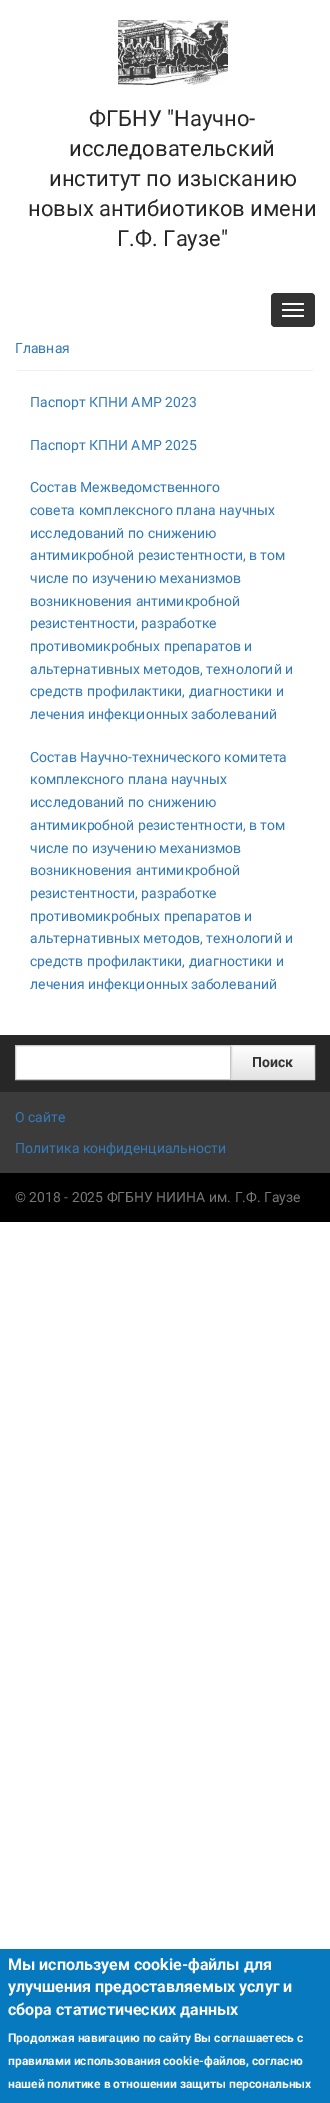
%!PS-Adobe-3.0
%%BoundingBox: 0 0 330 2103
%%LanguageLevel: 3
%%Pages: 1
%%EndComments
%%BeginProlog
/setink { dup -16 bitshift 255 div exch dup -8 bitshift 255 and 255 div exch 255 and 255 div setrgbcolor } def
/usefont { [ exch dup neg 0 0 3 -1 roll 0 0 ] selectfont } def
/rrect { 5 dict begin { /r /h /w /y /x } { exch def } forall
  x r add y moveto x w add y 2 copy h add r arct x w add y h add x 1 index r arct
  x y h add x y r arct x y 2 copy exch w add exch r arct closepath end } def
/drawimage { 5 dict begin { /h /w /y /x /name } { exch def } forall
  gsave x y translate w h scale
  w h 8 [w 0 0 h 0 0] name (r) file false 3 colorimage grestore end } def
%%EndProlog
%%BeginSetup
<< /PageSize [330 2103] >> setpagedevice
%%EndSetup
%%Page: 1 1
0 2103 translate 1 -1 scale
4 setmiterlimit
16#FFFFFF setink
0 0 330 2103 rectfill
(img1.raw) 118 20 110 65 drawimage
/Roboto-Regular 22 usefont
16#272727 setink
[
    [(ФГБНУ "Научно-) 89 126]
    [(исследовательский) 69 156]
    [(институт по изысканию) 49 186]
    [(новых антибиотиков имени) 28 216]
    [(Г.Ф. Гаузе") 117 246]
] { aload pop moveto show } forall
16#333333 setink
271 293 44 34 4 rrect fill
16#FFFFFF setink
282 303 22 2 1 rrect fill
282 309 22 2 1 rrect fill
282 315 22 2 1 rrect fill
16#EEEEEE setink
17 370 296 1 rectfill
/Roboto-Regular 14 usefont
16#337AB7 setink
[
    [(Главная) 15 353]
    [(Паспорт КПНИ АМР 2023) 30 407]
    [(Паспорт КПНИ АМР 2025) 30 450]
    [(Состав Межведомственного) 30 492]
    [(совета комплексного плана научных) 30 515]
    [(исследований по снижению) 30 538]
    [(антимикробной резистентности, в том) 30 560]
    [(числе по изучению механизмов) 30 583]
    [(возникновения антимикробной) 30 606]
    [(резистентности, разработке) 30 628]
    [(противомикробных препаратов и) 30 651]
    [(альтернативных методов, технологий и) 30 674]
    [(средств профилактики, диагностики и) 30 696]
    [(лечения инфекционных заболеваний) 30 719]
    [(Состав Научно-технического комитета) 30 762]
    [(комплексного плана научных) 30 784]
    [(исследований по снижению) 30 807]
    [(антимикробной резистентности, в том) 30 830]
    [(числе по изучению механизмов) 30 853]
    [(возникновения антимикробной) 30 875]
    [(резистентности, разработке) 30 898]
    [(противомикробных препаратов и) 30 921]
    [(альтернативных методов, технологий и) 30 943]
    [(средств профилактики, диагностики и) 30 966]
    [(лечения инфекционных заболеваний) 30 989]
] { aload pop moveto show } forall
16#272727 setink
0 1035 330 57 rectfill
16#FFFFFF setink
15.5 1045.5 moveto 230.5 1045.5 lineto 230.5 1079.5 lineto 15.5 1079.5 lineto closepath gsave fill grestore
16#C7C7C7 setink
stroke
gsave 232 1046 moveto 314 1046 lineto 314 1079 lineto 232 1079 lineto closepath clip newpath
<< /ShadingType 2 /ColorSpace /DeviceRGB /Coords [273 1046 273 1079] /Extend [true true] /Function << /FunctionType 2 /Domain [0 1] /C0 [1 1 1] /C1 [0.89 0.89 0.89] /N 1 >> >> shfill grestore
16#DBDBDB setink
231.5 1045.5 83 34 rectstroke
/Roboto-Bold 14 usefont
16#333333 setink
252 1067 moveto (Поиск) show
16#3C3B3B setink
0 1092 330 81 rectfill
/Roboto-Regular 14 usefont
16#337AB7 setink
15 1122 moveto (О сайте) show
15 1153 moveto (Политика конфиденциальности) show
16#000000 setink
0 1173 330 49 rectfill
16#777777 setink
15 1202 moveto (© 2018 - 2025 ФГБНУ НИИНА им. Г.Ф. Гаузе) show
16#0779BF setink
0 1949 330 154 rectfill
/Roboto-Bold 16 usefont
16#FFFFFF setink
[
    [(Мы используем cookie-файлы для) 8 1970]
    [(улучшения предоставляемых услуг и) 8 1992]
    [(сбора статистических данных) 8 2015]
] { aload pop moveto show } forall
/Roboto-Bold 12 usefont
[
    [(Продолжая навигацию по сайту Вы соглашаетесь с) 8 2042]
    [(правилами использования cookie-файлов, согласно) 8 2065]
    [(нашей политике в отношении защиты персональных) 8 2088]
] { aload pop moveto show } forall
showpage
%%EOF
